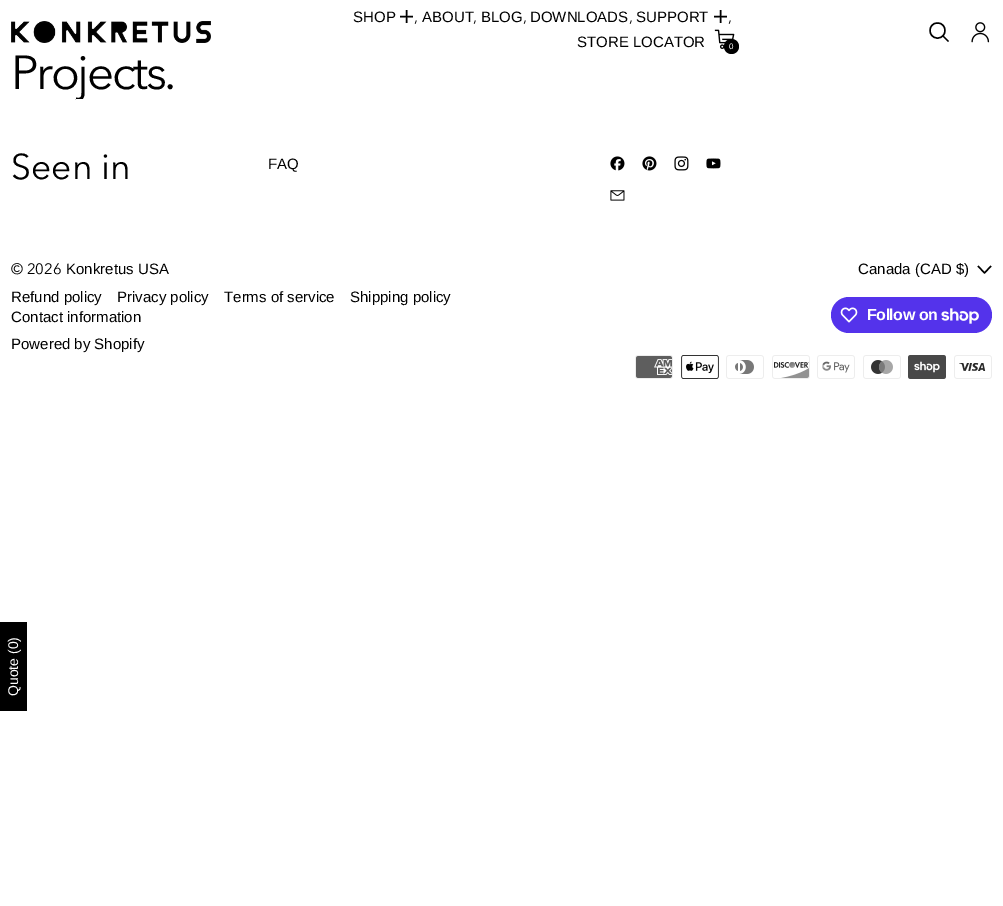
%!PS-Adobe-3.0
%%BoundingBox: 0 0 1003 906
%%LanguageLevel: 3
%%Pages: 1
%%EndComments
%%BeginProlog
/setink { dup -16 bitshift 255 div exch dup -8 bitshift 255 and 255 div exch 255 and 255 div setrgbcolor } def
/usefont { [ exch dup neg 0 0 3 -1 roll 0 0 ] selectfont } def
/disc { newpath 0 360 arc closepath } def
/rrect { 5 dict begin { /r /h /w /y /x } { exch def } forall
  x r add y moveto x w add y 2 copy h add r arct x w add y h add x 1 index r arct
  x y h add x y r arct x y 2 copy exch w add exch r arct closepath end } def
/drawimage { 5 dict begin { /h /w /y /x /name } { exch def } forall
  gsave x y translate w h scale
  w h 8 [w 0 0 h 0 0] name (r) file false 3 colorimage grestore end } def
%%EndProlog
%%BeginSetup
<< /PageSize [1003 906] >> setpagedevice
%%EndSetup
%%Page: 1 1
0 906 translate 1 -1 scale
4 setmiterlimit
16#FFFFFF setink
0 0 1003 906 rectfill
(img1.raw) 11 21 200 22 drawimage
/LiberationSans-Regular 15 usefont
16#000000 setink
353 22 moveto (SHOP) show
1.4 setlinewidth
1 setlinejoin
400 16.5 moveto 413 16.5 lineto 406.5 10 moveto 406.5 23 lineto stroke
/AvenirNext-Regular 15 usefont
414 22 moveto (,) show
/LiberationSans-Regular 15 usefont
422 22 moveto (ABOUT) show
/AvenirNext-Regular 15 usefont
473 22 moveto (,) show
/LiberationSans-Regular 15 usefont
481 22 moveto (BLOG) show
/AvenirNext-Regular 15 usefont
523 22 moveto (,) show
/LiberationSans-Regular 15 usefont
530 22 moveto (DOWNLOADS) show
/AvenirNext-Regular 15 usefont
629 22 moveto (,) show
/LiberationSans-Regular 15 usefont
636 22 moveto (SUPPORT) show
714 16.5 moveto 727 16.5 lineto 720.5 10 moveto 720.5 23 lineto stroke
/AvenirNext-Regular 15 usefont
728 22 moveto (,) show
/LiberationSans-Regular 15 usefont
577 47 moveto (STORE LOCATOR) show
(img2.raw) 714 29 21 20 drawimage
731.5 46.5 7.5 disc fill
/LiberationSans-Regular 8 usefont
16#FFFFFF setink
729 49 moveto (0) show
16#000000 setink
0 setlinejoin
937.5 38 moveto 947.5 38 947.5 23 937.5 23 curveto 927.5 23 927.5 38 937.5 38 curveto closepath 943 36 moveto 948.5 41.5 lineto stroke
(img3.raw) 971 22 19 21 drawimage
/AvenirNext-Regular 47.5 usefont
11 89 moveto -2.4 0 (Projects.) ashow
16#FFFFFF setink
76 99 8 2 rectfill
/AvenirNext-Regular 35.5 usefont
16#000000 setink
11 179 moveto (Seen in) show
/LiberationSans-Regular 15 usefont
268 169 moveto (FAQ) show
(img4.raw) 610 156 15 15 drawimage
(img5.raw) 642 156 15 15 drawimage
(img6.raw) 674 156 15 15 drawimage
(img7.raw) 706 158 15 11 drawimage
(img8.raw) 610 190 15 11 drawimage
/AvenirNext-Regular 15 usefont
11 274 moveto (© 2026) show
/LiberationSans-Regular 15 usefont
[
    [(Konkretus USA) 66 274]
    [(Refund policy) 11 302]
    [(Privacy policy) 117 302]
    [(Terms of service) 224 302]
    [(Shipping policy) 350 302]
    [(Contact information) 11 322]
    [(Powered by Shopify) 11 349]
    [(Canada \(CAD $\)) 858 274]
] { aload pop moveto show } forall
1 setlinejoin
978 266 moveto 984.5 273 lineto 991 266 lineto stroke
16#5433EB setink
831 297 161 36 18 rrect fill
(img9.raw) 840 307 18 16 drawimage
/LiberationSans-Bold 16 usefont
16#FFFFFF setink
867 320 moveto -0.5 0 (Follow on) ashow
(img10.raw) 941 308 38 16 drawimage
(img11.raw) 635 355 38 24 drawimage
(img12.raw) 681 355 38 24 drawimage
(img13.raw) 726 355 38 24 drawimage
(img14.raw) 772 355 38 24 drawimage
(img15.raw) 817 355 38 24 drawimage
(img16.raw) 863 355 38 24 drawimage
(img17.raw) 908 355 38 24 drawimage
(img18.raw) 954 355 38 24 drawimage
16#000000 setink
0 622 27 89 rectfill
/LiberationSans-Regular 14 usefont
16#FFFFFF setink
gsave 18 696 translate -90 rotate 0 0 moveto (Quote \(0\)) show grestore
showpage
%%EOF
